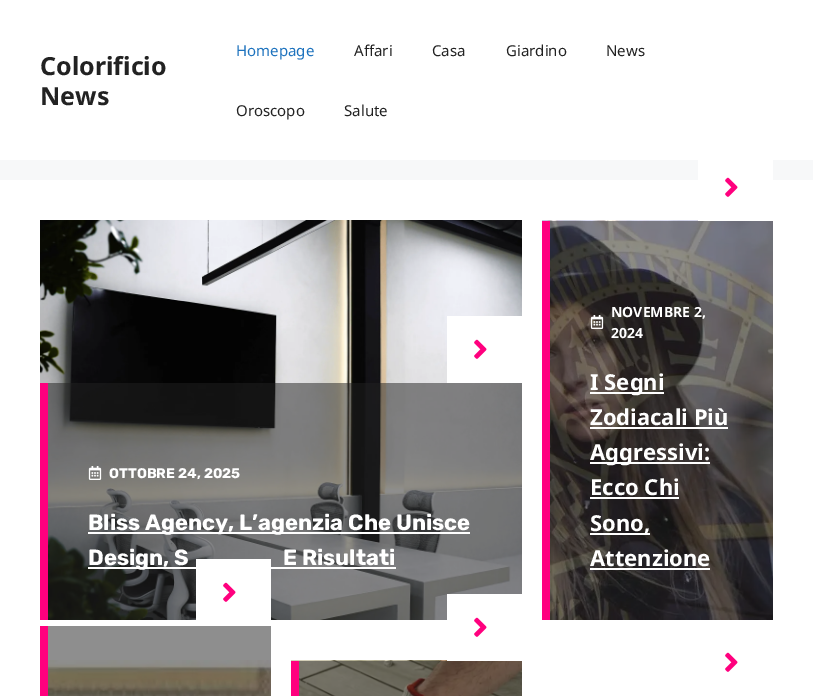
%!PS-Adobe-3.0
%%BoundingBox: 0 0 813 696
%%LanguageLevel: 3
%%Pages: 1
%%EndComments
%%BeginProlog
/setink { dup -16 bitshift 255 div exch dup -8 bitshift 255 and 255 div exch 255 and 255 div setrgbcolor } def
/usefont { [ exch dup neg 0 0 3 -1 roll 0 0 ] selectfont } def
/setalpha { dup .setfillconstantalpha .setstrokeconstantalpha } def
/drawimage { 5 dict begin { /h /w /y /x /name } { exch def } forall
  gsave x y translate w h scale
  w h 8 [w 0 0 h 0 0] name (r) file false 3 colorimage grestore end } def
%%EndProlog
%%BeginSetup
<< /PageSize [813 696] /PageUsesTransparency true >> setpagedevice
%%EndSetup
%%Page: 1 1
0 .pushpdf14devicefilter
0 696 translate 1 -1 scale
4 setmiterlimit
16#F7F8F9 setink
0 0 813 696 rectfill
16#FFFFFF setink
0 0 813 160 rectfill
/NotoSans-Bold 25 usefont
16#222222 setink
40 75 moveto (Colorificio) show
40 105 moveto (News) show
/NotoSans-Regular 15 usefont
16#1E73BE setink
236 56 moveto (Homepage) show
16#222222 setink
[
    [(Affari) 354 56]
    [(Casa) 432 56]
    [(Giardino) 506 56]
    [(News) 606 56]
    [(Oroscopo) 236 116]
    [(Salute) 344 116]
] { aload pop moveto show } forall
16#FFFFFF setink
0 180 813 516 rectfill
16#8E8E8E setink
48 626 223 34 rectfill
(img1.raw) 40 220 482 400 drawimage
16#FFFFFF setink
447 316 75 67 rectfill
(img2.raw) 474 339 13 20 drawimage
0.51 setalpha
16#212121 setink
48 383 474 237 rectfill
1 setalpha
16#FF007E setink
40 383 8 237 rectfill
(img3.raw) 88 466 14 14 drawimage
/Rubik-Bold 14 usefont
16#FFFFFF setink
109 478 moveto (OTTOBRE 24, 2025) show
88 532 382 2 rectfill
/Rubik-Bold 22 usefont
88 530 moveto (Bliss Agency, L’agenzia Che Unisce) show
88 567 308 2 rectfill
88 565 moveto (Design, S) show
283 565 moveto (E Risultati) show
(img4.raw) 542 220 231 400 drawimage
698 160 75 61 rectfill
(img2.raw) 725 177 13 20 drawimage
16#FF007E setink
542 221 8 399 rectfill
(img5.raw) 590 315 14 14 drawimage
/NotoSans-Bold 14 usefont
16#FFFFFF setink
611 317 moveto (NOVEMBRE 2,) show
611 338 moveto (2024) show
590 392 74 2 rectfill
/NotoSans-Bold 22 usefont
590 390 moveto (I Segni) show
590 425 moveto (Zodiacali Più) show
590 427 138 2 rectfill
590 462 120 2 rectfill
590 460 moveto (Aggressivi:) show
590 495 moveto (Ecco Chi) show
590 497 89 2 rectfill
590 533 60 2 rectfill
590 531 moveto (Sono,) show
590 566 moveto (Attenzione) show
590 568 120 2 rectfill
(img6.raw) 48 660 223 36 drawimage
196 559 75 61 rectfill
(img2.raw) 223 582 13 20 drawimage
16#FF007E setink
40 626 8 70 rectfill
(img7.raw) 291 660 231 36 drawimage
16#FFFFFF setink
447 594 75 67 rectfill
(img2.raw) 474 617 13 20 drawimage
16#FF007E setink
291 661 8 35 rectfill
(img2.raw) 725 652 13 20 drawimage
.poppdf14devicefilter showpage
%%EOF
